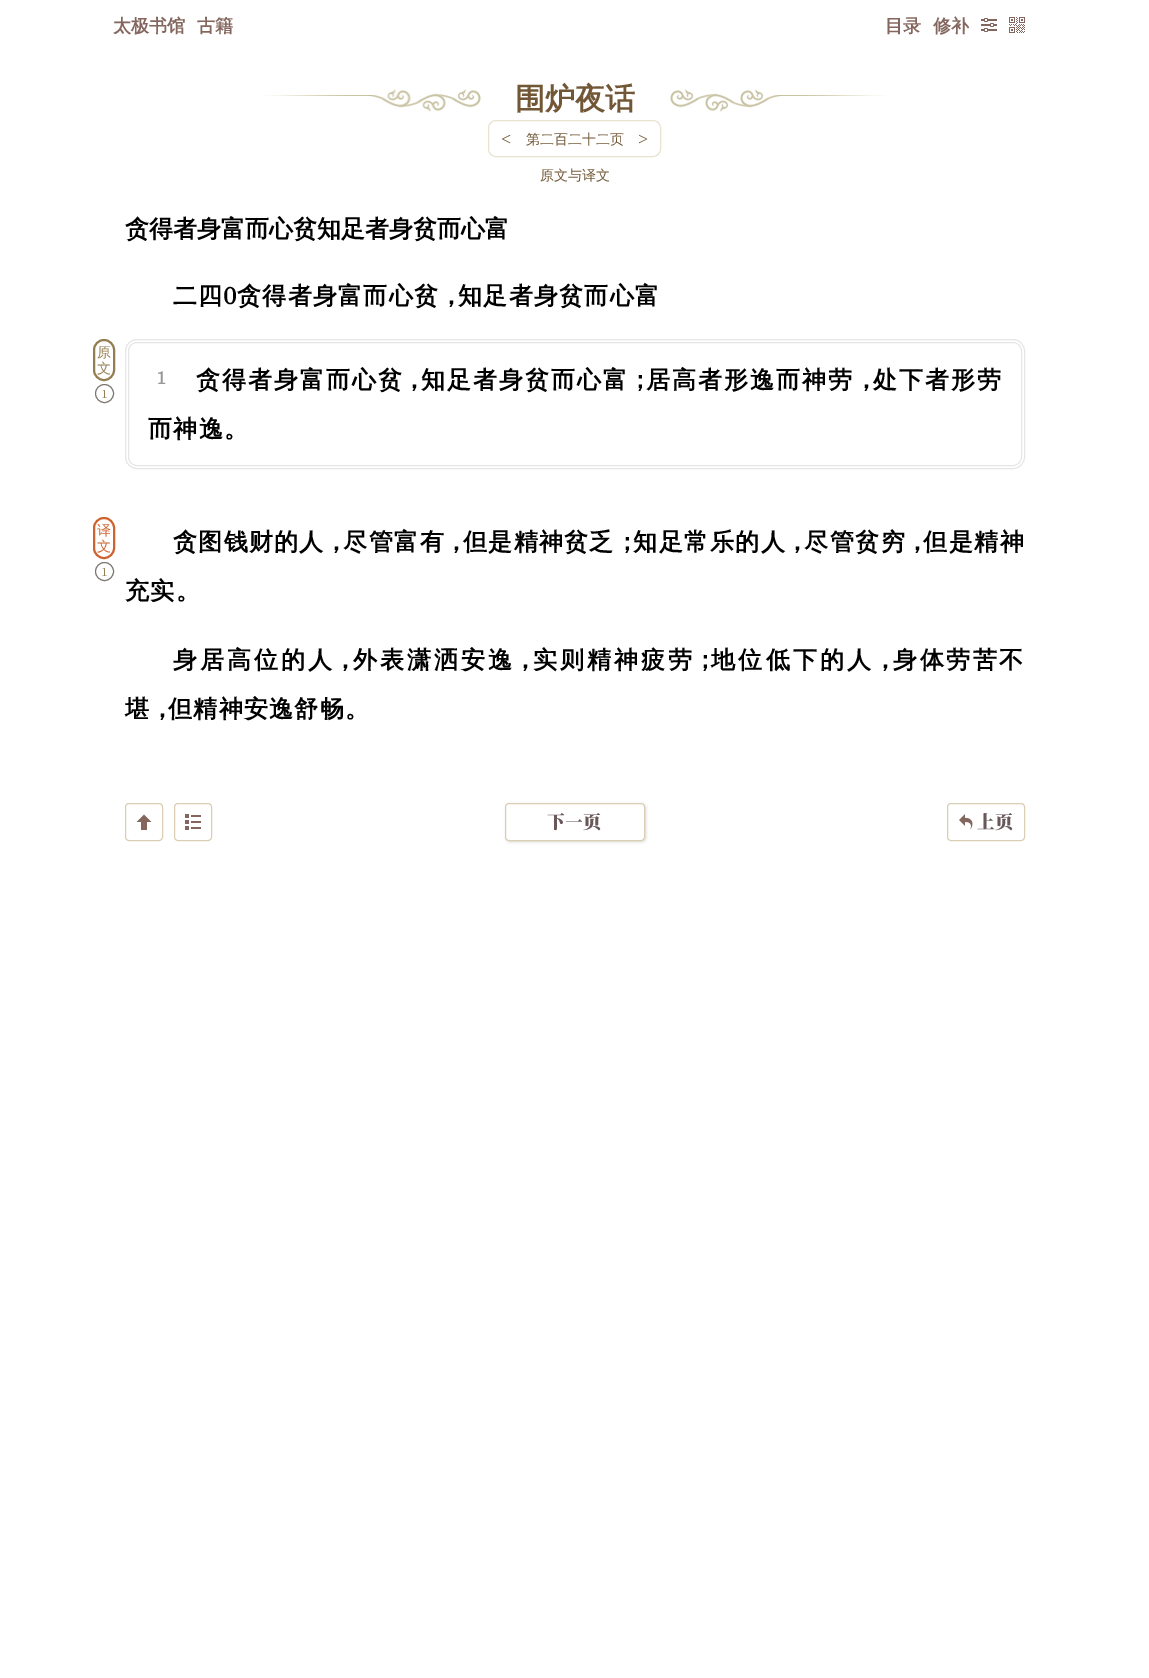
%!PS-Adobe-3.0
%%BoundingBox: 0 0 1149 1678
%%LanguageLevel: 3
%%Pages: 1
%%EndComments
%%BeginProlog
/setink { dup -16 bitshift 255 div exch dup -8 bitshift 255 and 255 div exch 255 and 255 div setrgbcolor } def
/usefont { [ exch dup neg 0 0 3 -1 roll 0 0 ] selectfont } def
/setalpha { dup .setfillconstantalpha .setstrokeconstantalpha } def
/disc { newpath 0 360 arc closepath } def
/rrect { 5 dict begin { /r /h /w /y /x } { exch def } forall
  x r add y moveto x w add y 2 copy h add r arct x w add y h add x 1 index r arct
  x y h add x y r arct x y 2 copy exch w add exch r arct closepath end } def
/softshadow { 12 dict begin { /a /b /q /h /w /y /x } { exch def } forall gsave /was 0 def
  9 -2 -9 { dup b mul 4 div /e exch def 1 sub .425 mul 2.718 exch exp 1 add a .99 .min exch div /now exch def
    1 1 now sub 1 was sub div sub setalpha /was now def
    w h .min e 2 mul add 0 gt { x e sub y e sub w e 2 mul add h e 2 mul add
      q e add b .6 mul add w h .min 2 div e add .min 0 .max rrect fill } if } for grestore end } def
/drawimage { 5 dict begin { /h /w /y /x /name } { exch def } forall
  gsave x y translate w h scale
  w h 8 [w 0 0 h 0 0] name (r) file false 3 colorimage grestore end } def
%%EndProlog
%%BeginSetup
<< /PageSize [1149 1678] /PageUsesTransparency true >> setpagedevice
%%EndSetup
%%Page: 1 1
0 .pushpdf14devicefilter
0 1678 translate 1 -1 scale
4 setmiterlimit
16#FFFFFF setink
0 0 1149 1678 rectfill
/WenQuanYiZenHei-Bold 18 usefont
16#83675E setink
[
    [(太极书馆) 113 32]
    [(古籍) 197 32]
    [(目录) 885 32]
    [(修补) 933 32]
] { aload pop moveto show } forall
(img1.raw) 981 18 16 14 drawimage
(img2.raw) 1009 17 16 16 drawimage
(img3.raw) 264 89 217 23 drawimage
(img4.raw) 670 89 216 23 drawimage
/WenQuanYiZenHei-Bold 30 usefont
16#715735 setink
515 109 moveto (围炉夜话) show
16#E8E2D1 setink
488.5 120.5 172 36 7.5 rrect stroke
/LiberationSerif-Regular 18 usefont
16#715735 setink
501 145 moveto (<) show
/WenQuanYiZenHei-Medium 14 usefont
526 144 moveto (第二百二十二页) show
/LiberationSerif-Regular 18 usefont
638 145 moveto (>) show
/WenQuanYiZenHei-Bold 24 usefont
16#000000 setink
125 237 moveto (贪得者身富而心贫知足者身贫而心富) show
173 304 moveto 1.25 0 (二四) ashow
/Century-Bold 24 usefont
223 304 moveto 1.25 0 (0) ashow
/WenQuanYiZenHei-Bold 24 usefont
237 304 moveto 1.25 0 (贪得者身富而心贫，) ashow
458 304 moveto 1.25 0 (知足者身贫而心富) ashow
16#957D52 setink
2 setlinewidth
94 340 20 40 10 rrect stroke
/WenQuanYiZenHei-Medium 14 usefont
97 357 moveto (原) show
97 373 moveto (文) show
16#7B7770 setink
1 setlinewidth
104.5 393.5 9 disc stroke
/Century-Regular 12 usefont
16#957D52 setink
101 398 moveto (1) show
16#E6E6E6 setink
125.5 339.5 899 129 11.5 rrect stroke
128.5 342.5 893 123 8.5 rrect stroke
/Century-Bold 18 usefont
16#969696 setink
156 384 moveto 1.25 0 (1) ashow
/WenQuanYiZenHei-Bold 24 usefont
16#000000 setink
196 388 moveto 2 0 (贪得者身富而心贫) ashow
402 388 moveto 1.25 0 (，) ashow
421 388 moveto 2 0 (知足者身贫而心富) ashow
628 388 moveto 1.25 0 (；) ashow
646 388 moveto 2 0 (居高者形逸而神劳) ashow
854 388 moveto 1.25 0 (，) ashow
873 388 moveto 2 0 (处下者形劳) ashow
148 437 moveto 1.25 0 (而神逸。) ashow
16#CD632F setink
2 setlinewidth
94 518 20 40 10 rrect stroke
/WenQuanYiZenHei-Medium 14 usefont
97 535 moveto (译) show
97 551 moveto (文) show
16#7B7770 setink
1 setlinewidth
104.5 571.5 9 disc stroke
/Century-Regular 12 usefont
16#957D52 setink
101 576 moveto (1) show
/WenQuanYiZenHei-Bold 24 usefont
16#000000 setink
173 550 moveto 1.25 0 (贪图钱财的人) ashow
324 550 moveto 1.25 0 (，) ashow
343 550 moveto 1.5 0 (尽管富有) ashow
444 550 moveto 1.25 0 (，) ashow
463 550 moveto 1.25 0 (但是精神贫乏) ashow
615 550 moveto 1.25 0 (；) ashow
633 550 moveto 1.5 0 (知足常乐的人) ashow
785 550 moveto 1.25 0 (，) ashow
804 550 moveto 1.5 0 (尽管贫穷) ashow
905 550 moveto 1.25 0 (，) ashow
923 550 moveto 1.5 0 (但是精神) ashow
125 599 moveto 1.25 0 (充实。) ashow
173 668 moveto 3 0 (身居高位的人) ashow
333 668 moveto 1.25 0 (，) ashow
353 668 moveto 3 0 (外表潇洒安逸) ashow
513 668 moveto 1.25 0 (，) ashow
533 668 moveto 3 0 (实则精神疲劳) ashow
693 668 moveto 1.25 0 (；) ashow
711 668 moveto 3.25 0 (地位低下的人) ashow
873 668 moveto 1.25 0 (，) ashow
893 668 moveto 2.5 0 (身体劳苦不) ashow
125 717 moveto 1.25 0 (堪，) ashow
168 717 moveto 1.25 0 (但精神安逸舒畅。) ashow
/WenQuanYiZenHei-Medium 14 usefont
16#715735 setink
540 180 moveto (原文与译文) show
16#DBCFB3 setink
125.5 803.5 37 37 3.5 rrect stroke
(img5.raw) 136 814 16 16 drawimage
174.5 803.5 37 37 3.5 rrect stroke
(img6.raw) 185 814 16 16 drawimage
gsave
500 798 moveto 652 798 lineto 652 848 lineto 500 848 lineto closepath 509 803 moveto 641 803 lineto 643 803 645 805 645 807 curveto 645 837 lineto 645 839 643 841 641 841 curveto 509 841 lineto 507 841 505 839 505 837 curveto 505 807 lineto 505 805 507 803 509 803 curveto closepath eoclip newpath
16#D8D8D8 setink
506 804 140 38 4 1.5 1 softshadow
grestore
505.5 803.5 139 37 3.5 rrect stroke
/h-Regular 18 usefont
16#685859 setink
547 827 moveto (下一页) show
16#DBCFB3 setink
947.5 803.5 77 37 3.5 rrect stroke
(img7.raw) 959 814 14 16 drawimage
16#685859 setink
977 827 moveto (上页) show
.poppdf14devicefilter showpage
%%EOF
